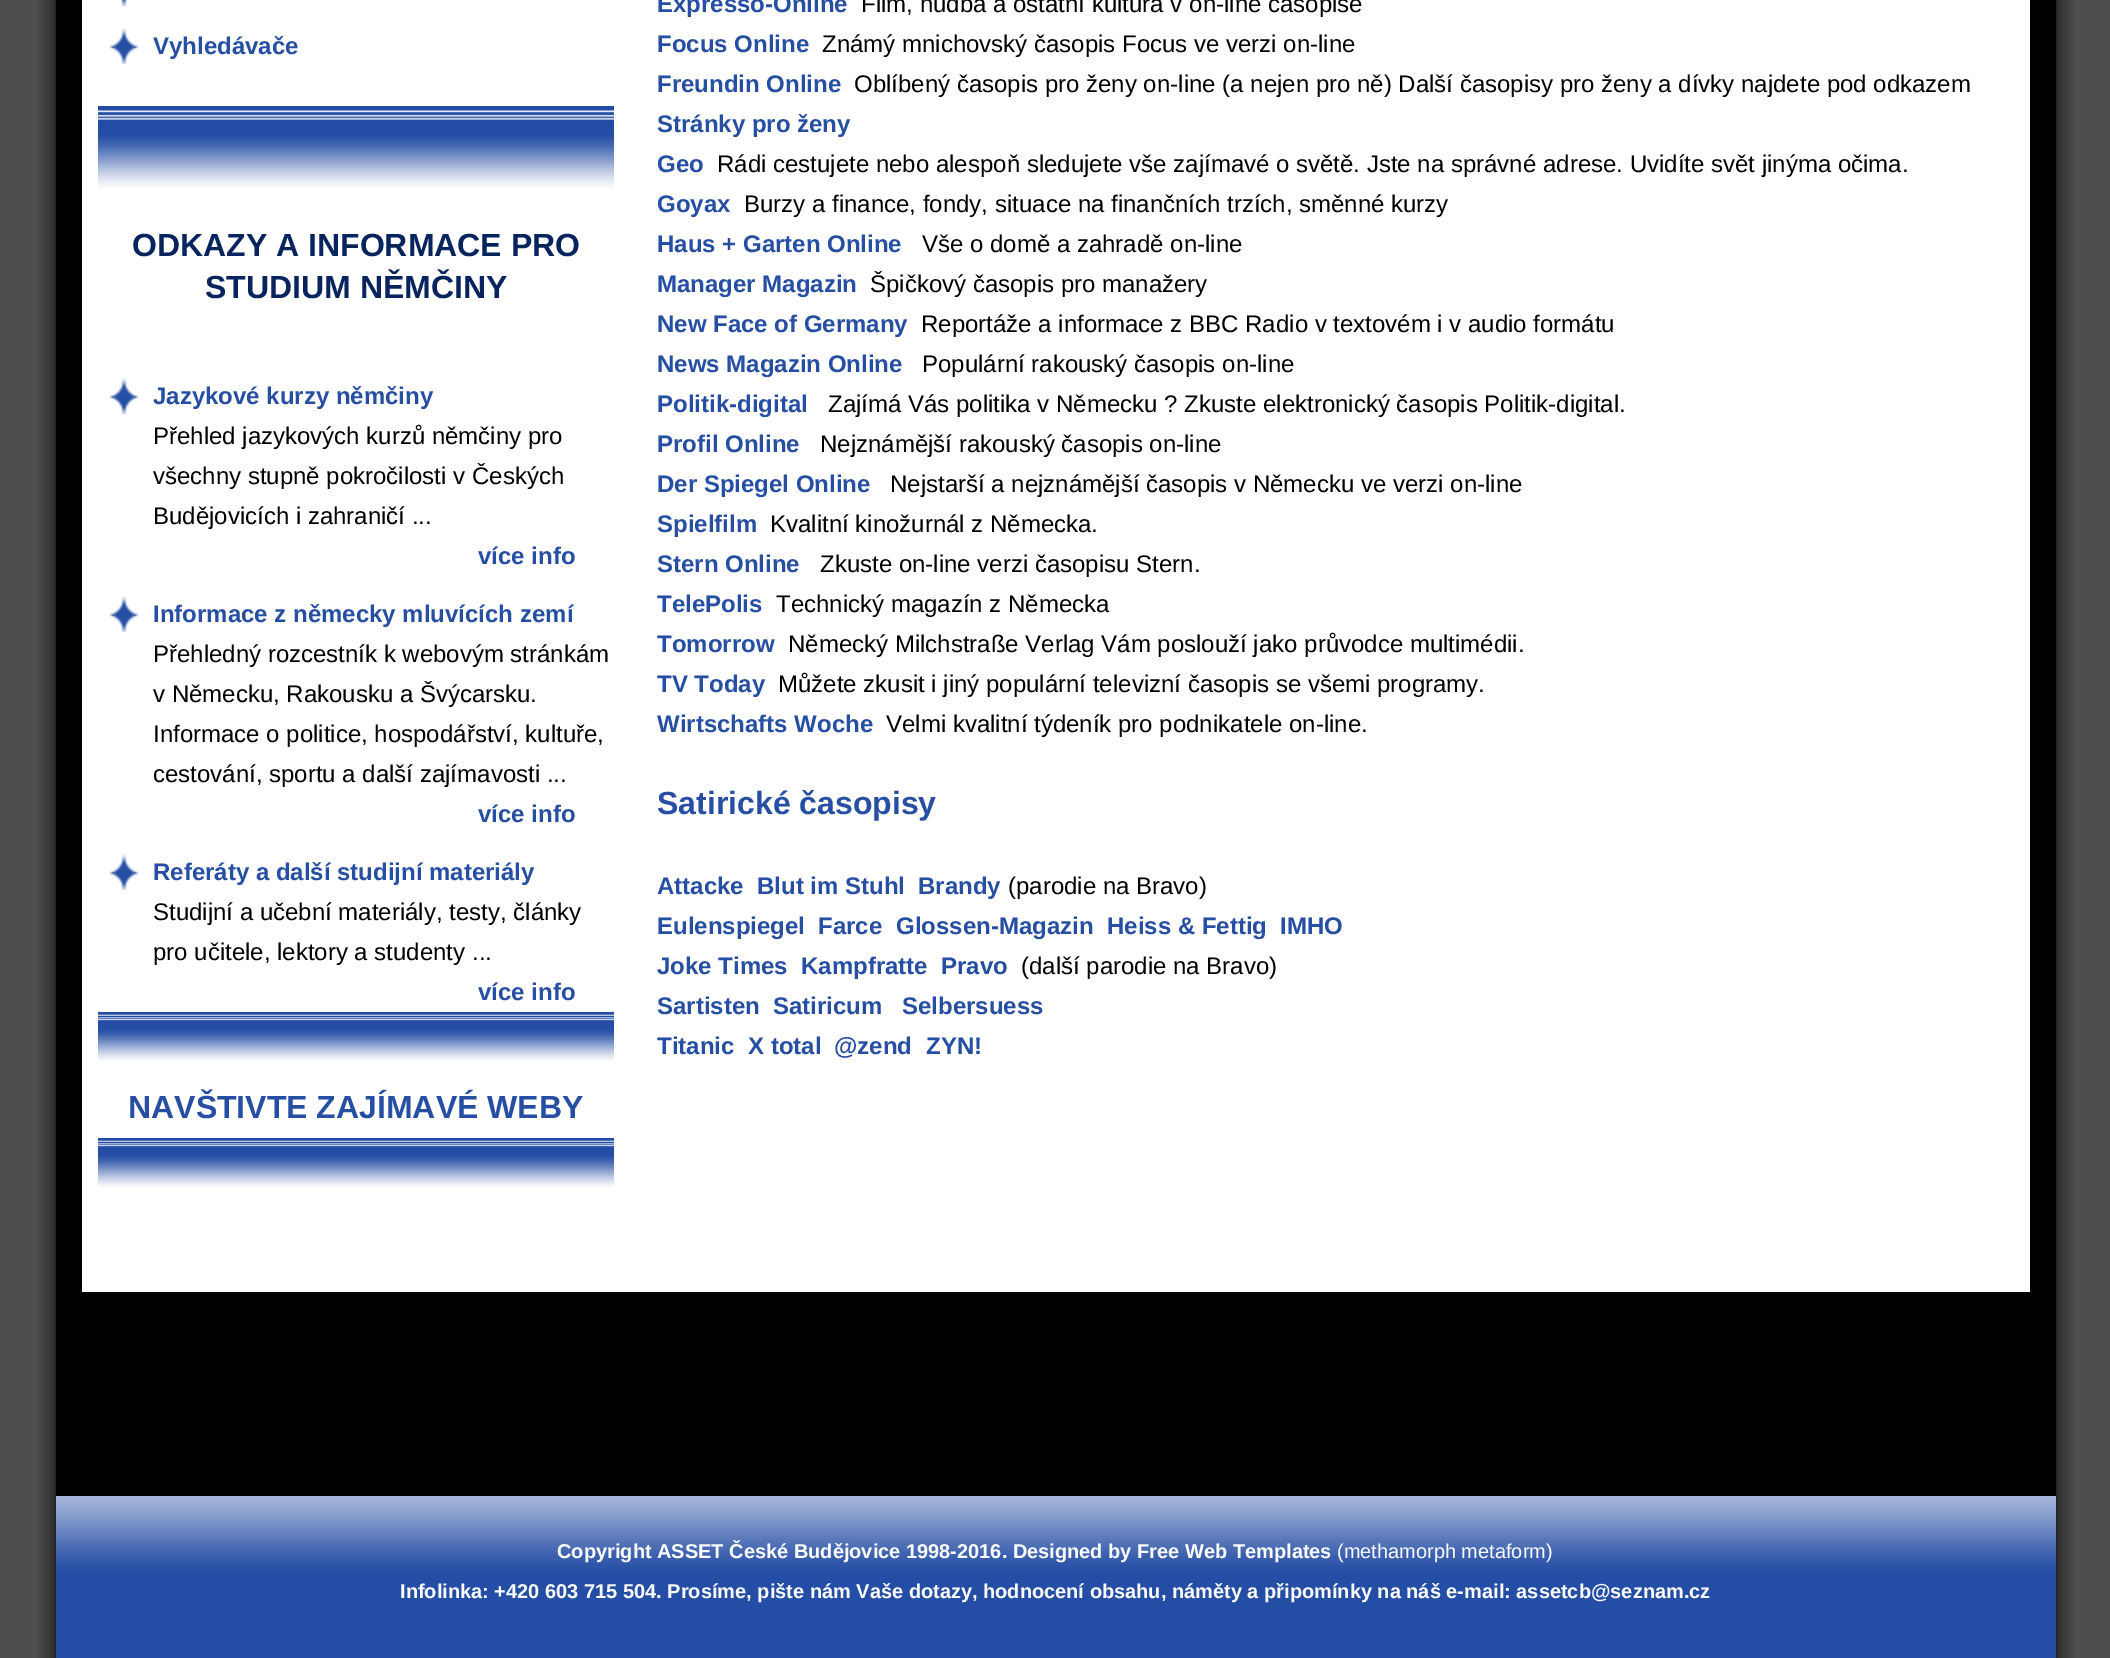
%!PS-Adobe-3.0
%%BoundingBox: 0 0 2110 1658
%%LanguageLevel: 3
%%Pages: 1
%%EndComments
%%BeginProlog
/setink { dup -16 bitshift 255 div exch dup -8 bitshift 255 and 255 div exch 255 and 255 div setrgbcolor } def
/usefont { [ exch dup neg 0 0 3 -1 roll 0 0 ] selectfont } def
/drawimage { 5 dict begin { /h /w /y /x /name } { exch def } forall
  gsave x y translate w h scale
  w h 8 [w 0 0 h 0 0] name (r) file false 3 colorimage grestore end } def
%%EndProlog
%%BeginSetup
<< /PageSize [2110 1658] >> setpagedevice
%%EndSetup
%%Page: 1 1
0 1658 translate 1 -1 scale
4 setmiterlimit
16#4F4E4E setink
0 0 2110 1658 rectfill
(img1.raw) 37 0 2038 1658 drawimage
16#000000 setink
56 0 2000 1496 rectfill
16#FFFFFF setink
82 0 1948 1292 rectfill
(img2.raw) 121 0 6 6 drawimage
(img3.raw) 110 28 28 36 drawimage
/LiberationSans-Bold 24 usefont
16#264FA4 setink
153 54 moveto (Vyhledávače) show
(img4.raw) 98 106 516 82 drawimage
/LiberationSans-Bold 32 usefont
16#08245F setink
132 256 moveto (ODKAZY A INFORMACE PRO) show
205 298 moveto (STUDIUM NĚMČINY) show
(img3.raw) 110 378 28 36 drawimage
/LiberationSans-Bold 24 usefont
16#264FA4 setink
153 404 moveto (Jazykové kurzy němčiny) show
/LiberationSans-Regular 24 usefont
16#000000 setink
[
    [(Přehled jazykových kurzů němčiny pro) 153 444]
    [(všechny stupně pokročilosti v Českých) 153 484]
    [(Budějovicích i zahraničí ...) 153 524]
] { aload pop moveto show } forall
/LiberationSans-Bold 24 usefont
16#264FA4 setink
478 564 moveto (více info) show
(img3.raw) 110 596 28 36 drawimage
153 622 moveto (Informace z německy mluvících zemí) show
/LiberationSans-Regular 24 usefont
16#000000 setink
[
    [(Přehledný rozcestník k webovým stránkám) 153 662]
    [(v Německu, Rakousku a Švýcarsku.) 153 702]
    [(Informace o politice, hospodářství, kultuře,) 153 742]
    [(cestování, sportu a další zajímavosti ...) 153 782]
] { aload pop moveto show } forall
/LiberationSans-Bold 24 usefont
16#264FA4 setink
478 822 moveto (více info) show
(img3.raw) 110 854 28 36 drawimage
153 880 moveto (Referáty a další studijní materiály) show
/LiberationSans-Regular 24 usefont
16#000000 setink
153 920 moveto (Studijní a učební materiály, testy, články) show
153 960 moveto (pro učitele, lektory a studenty ...) show
/LiberationSans-Bold 24 usefont
16#264FA4 setink
478 1000 moveto (více info) show
(img5.raw) 98 1012 516 49 drawimage
/LiberationSans-Bold 32 usefont
128 1118 moveto (NAVŠTIVTE ZAJÍMAVÉ WEBY) show
(img5.raw) 98 1138 516 49 drawimage
/LiberationSans-Bold 24 usefont
657 12 moveto (Expresso-Online) show
/LiberationSans-Regular 24 usefont
16#000000 setink
861 12 moveto (Film, hudba a ostatní kultura v on-line časopise) show
/LiberationSans-Bold 24 usefont
16#264FA4 setink
657 52 moveto (Focus Online) show
/LiberationSans-Regular 24 usefont
16#000000 setink
822 52 moveto (Známý mnichovský časopis Focus ve verzi on-line) show
/LiberationSans-Bold 24 usefont
16#264FA4 setink
657 92 moveto (Freundin Online) show
/LiberationSans-Regular 24 usefont
16#000000 setink
854 92 moveto (Oblíbený časopis pro ženy on-line \(a nejen pro ně\) Další časopisy pro ženy a dívky najdete pod odkazem) show
/LiberationSans-Bold 24 usefont
16#264FA4 setink
657 132 moveto (Stránky pro ženy) show
657 172 moveto (Geo) show
/LiberationSans-Regular 24 usefont
16#000000 setink
717 172 moveto (Rádi cestujete nebo alespoň sledujete vše zajímavé o světě. Jste na správné adrese. Uvidíte svět jinýma očima.) show
/LiberationSans-Bold 24 usefont
16#264FA4 setink
657 212 moveto (Goyax) show
/LiberationSans-Regular 24 usefont
16#000000 setink
744 212 moveto (Burzy a finance, fondy, situace na finančních trzích, směnné kurzy) show
/LiberationSans-Bold 24 usefont
16#264FA4 setink
657 252 moveto (Haus + Garten Online) show
/LiberationSans-Regular 24 usefont
16#000000 setink
922 252 moveto (Vše o domě a zahradě on-line) show
/LiberationSans-Bold 24 usefont
16#264FA4 setink
657 292 moveto (Manager Magazin) show
/LiberationSans-Regular 24 usefont
16#000000 setink
870 292 moveto (Špičkový časopis pro manažery) show
/LiberationSans-Bold 24 usefont
16#264FA4 setink
657 332 moveto (New Face of Germany) show
/LiberationSans-Regular 24 usefont
16#000000 setink
921 332 moveto (Reportáže a informace z BBC Radio v textovém i v audio formátu) show
/LiberationSans-Bold 24 usefont
16#264FA4 setink
657 372 moveto (News Magazin Online) show
/LiberationSans-Regular 24 usefont
16#000000 setink
922 372 moveto (Populární rakouský časopis on-line) show
/LiberationSans-Bold 24 usefont
16#264FA4 setink
657 412 moveto (Politik-digital) show
/LiberationSans-Regular 24 usefont
16#000000 setink
828 412 moveto (Zajímá Vás politika v Německu ? Zkuste elektronický časopis Politik-digital.) show
/LiberationSans-Bold 24 usefont
16#264FA4 setink
657 452 moveto (Profil Online) show
/LiberationSans-Regular 24 usefont
16#000000 setink
820 452 moveto (Nejznámější rakouský časopis on-line) show
/LiberationSans-Bold 24 usefont
16#264FA4 setink
657 492 moveto (Der Spiegel Online) show
/LiberationSans-Regular 24 usefont
16#000000 setink
890 492 moveto (Nejstarší a nejznámější časopis v Německu ve verzi on-line) show
/LiberationSans-Bold 24 usefont
16#264FA4 setink
657 532 moveto (Spielfilm) show
/LiberationSans-Regular 24 usefont
16#000000 setink
770 532 moveto (Kvalitní kinožurnál z Německa.) show
/LiberationSans-Bold 24 usefont
16#264FA4 setink
657 572 moveto (Stern Online) show
/LiberationSans-Regular 24 usefont
16#000000 setink
820 572 moveto (Zkuste on-line verzi časopisu Stern.) show
/LiberationSans-Bold 24 usefont
16#264FA4 setink
657 612 moveto (TelePolis) show
/LiberationSans-Regular 24 usefont
16#000000 setink
776 612 moveto (Technický magazín z Německa) show
/LiberationSans-Bold 24 usefont
16#264FA4 setink
657 652 moveto (Tomorrow) show
/LiberationSans-Regular 24 usefont
16#000000 setink
788 652 moveto (Německý Milchstraße Verlag Vám poslouží jako průvodce multimédii.) show
/LiberationSans-Bold 24 usefont
16#264FA4 setink
657 692 moveto (TV Today) show
/LiberationSans-Regular 24 usefont
16#000000 setink
778 692 moveto (Můžete zkusit i jiný populární televizní časopis se všemi programy.) show
/LiberationSans-Bold 24 usefont
16#264FA4 setink
657 732 moveto (Wirtschafts Woche) show
/LiberationSans-Regular 24 usefont
16#000000 setink
886 732 moveto (Velmi kvalitní týdeník pro podnikatele on-line.) show
/LiberationSans-Bold 32 usefont
16#264FA4 setink
657 814 moveto (Satirické časopisy) show
/LiberationSans-Bold 24 usefont
[
    [(Attacke) 657 894]
    [(Blut im Stuhl) 757 894]
    [(Brandy) 918 894]
] { aload pop moveto show } forall
/LiberationSans-Regular 24 usefont
16#000000 setink
1008 894 moveto (\(parodie na Bravo\)) show
/LiberationSans-Bold 24 usefont
16#264FA4 setink
[
    [(Eulenspiegel) 657 934]
    [(Farce) 818 934]
    [(Glossen-Magazin) 896 934]
    [(Heiss & Fettig) 1107 934]
    [(IMHO) 1280 934]
    [(Joke Times) 657 974]
    [(Kampfratte) 801 974]
    [(Pravo) 941 974]
] { aload pop moveto show } forall
/LiberationSans-Regular 24 usefont
16#000000 setink
1021 974 moveto (\(další parodie na Bravo\)) show
/LiberationSans-Bold 24 usefont
16#264FA4 setink
[
    [(Sartisten) 657 1014]
    [(Satiricum) 773 1014]
    [(Selbersuess) 902 1014]
    [(Titanic) 657 1054]
    [(X total) 748 1054]
    [(@zend) 834 1054]
    [(ZYN!) 926 1054]
] { aload pop moveto show } forall
(img6.raw) 56 1496 2000 162 drawimage
/LiberationSans-Bold 20 usefont
16#FFFFFF setink
557 1558 moveto (Copyright ASSET České Budějovice 1998-2016. Designed by Free Web Templates) show
/LiberationSans-Regular 20 usefont
1337 1558 moveto (\(methamorph metaform\)) show
/LiberationSans-Bold 20 usefont
400 1598 moveto (Infolinka: +420 603 715 504. Prosíme, pište nám Vaše dotazy, hodnocení obsahu, náměty a připomínky na náš e-mail: assetcb@seznam.cz) show
showpage
%%EOF
